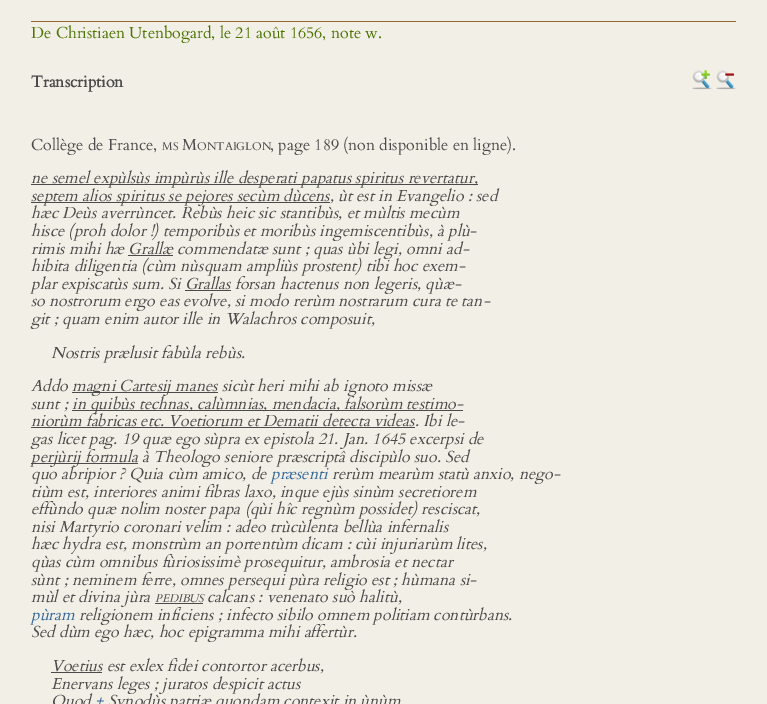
%!PS-Adobe-3.0
%%BoundingBox: 0 0 767 704
%%LanguageLevel: 3
%%Pages: 1
%%EndComments
%%BeginProlog
/setink { dup -16 bitshift 255 div exch dup -8 bitshift 255 and 255 div exch 255 and 255 div setrgbcolor } def
/usefont { [ exch dup neg 0 0 3 -1 roll 0 0 ] selectfont } def
/drawimage { 5 dict begin { /h /w /y /x /name } { exch def } forall
  gsave x y translate w h scale
  w h 8 [w 0 0 h 0 0] name (r) file false 3 colorimage grestore end } def
%%EndProlog
%%BeginSetup
<< /PageSize [767 704] >> setpagedevice
%%EndSetup
%%Page: 1 1
0 704 translate 1 -1 scale
4 setmiterlimit
16#F2EFE6 setink
0 0 767 704 rectfill
16#996633 setink
31 21 705 1 rectfill
/Cardo-Regular 16 usefont
16#4B7300 setink
31 38 moveto (De Christiaen Utenbogard, le 21 août 1656, note w.) show
/Cardo-Bold 16 usefont
16#4B4B4B setink
31 87 moveto (Transcription) show
(img1.raw) 692 70 20 20 drawimage
(img2.raw) 716 70 20 20 drawimage
/Cardo-Regular 16 usefont
31 150 moveto (Collège de France,) show
/Cardo-Regular 11.25 usefont
162 150 moveto (MS) show
/Cardo-Regular 16 usefont
182 150 moveto (M) show
/Cardo-Regular 11.25 usefont
197 150 moveto (ONTAIGLON) show
/Cardo-Regular 16 usefont
270 150 moveto (, page 189 \(non disponible en ligne\).) show
31 184 447 1 rectfill
/Cardo-Italic 16 usefont
31 183 moveto (ne semel expùlsùs impùrùs ille desperati papatus spiritus revertatur,) show
31 202 299 1 rectfill
[
    [(septem alios spiritus se pejores secùm dùcens, ùt est in Evangelio : sed) 31 201]
    [(hæc Deùs averrùncet. Rebùs heic sic stantibùs, et mùltis mecùm) 31 218]
    [(hisce \(proh dolor !\) temporibùs et moribùs ingemiscentibùs, à plù-) 31 236]
    [(rimis mihi hæ Grallæ commendatæ sunt ; quas ùbi legi, omni ad-) 31 254]
] { aload pop moveto show } forall
128 255 45 1 rectfill
31 271 moveto (hibita diligentia \(cùm nùsquam ampliùs prostent\) tibi hoc exem-) show
31 289 moveto (plar expiscatùs sum. Si Grallas forsan hactenus non legeris, qùæ-) show
185 290 46 1 rectfill
[
    [(so nostrorum ergo eas evolve, si modo rerùm nostrarum cura te tan-) 31 306]
    [(git ; quam enim autor ille in Walachros composuit,) 31 324]
    [(Nostris prælusit fabùla rebùs.) 51 358]
    [(Addo) 31 391]
] { aload pop moveto show } forall
72 392 146 1 rectfill
72 391 moveto (magni Cartesij manes sicùt heri mihi ab ignoto missæ) show
31 409 moveto (sunt ;) show
72 410 391 1 rectfill
72 409 moveto (in quibùs technas, calùmnias, mendacia, falsorùm testimo-) show
31 426 moveto (niorùm fabricas etc. Voetiorum et Dematii detecta videas. Ibi le-) show
31 427 384 1 rectfill
31 444 moveto (gas licet pag. 19 quæ ego sùpra ex epistola 21. Jan. 1645 excerpsi de) show
31 463 107 1 rectfill
31 462 moveto (perjùrij formula à Theologo seniore præscriptâ discipùlo suo. Sed) show
31 479 moveto (quo abripior ? Quia cùm amico, de) show
16#336699 setink
271 479 moveto (præsenti) show
16#4B4B4B setink
[
    [(rerùm mearùm statù anxio, nego-) 332 479]
    [(tiùm est, interiores animi fibras laxo, inque ejùs sinùm secretiorem) 31 497]
    [(effùndo quæ nolim noster papa \(qùi hîc regnùm possidet\) resciscat,) 31 514]
    [(nisi Martyrio coronari velim : adeo trùcùlenta bellùa infernalis) 31 532]
    [(hæc hydra est, monstrùm an portentùm dicam : cùi injuriarùm lites,) 31 549]
    [(qùas cùm omnibus fùriosissimè prosequitur, ambrosia et nectar) 31 567]
    [(sùnt ; neminem ferre, omnes persequi pùra religio est ; hùmana si-) 31 585]
    [(mùl et divina jùra) 31 602]
] { aload pop moveto show } forall
/Cardo-Italic 11.25 usefont
155 602 moveto (PEDIBUS) show
155 603 48 1 rectfill
/Cardo-Italic 16 usefont
207 602 moveto (calcans : venenato suò halitù,) show
16#336699 setink
31 620 moveto (pùram) show
16#4B4B4B setink
79 620 moveto (religionem inficiens ; infecto sibilo omnem politiam contùrbans.) show
31 637 moveto (Sed dùm ego hæc, hoc epigramma mihi affertùr.) show
51 672 51 1 rectfill
[
    [(Voetius est exlex fidei contortor acerbus,) 51 671]
    [(Enervans leges ; juratos despicit actus) 51 689]
    [(Quod) 51 706]
] { aload pop moveto show } forall
16#336699 setink
95 706 moveto (+) show
16#4B4B4B setink
108 706 moveto (Synodùs patriæ quondam contexit in ùnùm) show
showpage
%%EOF
